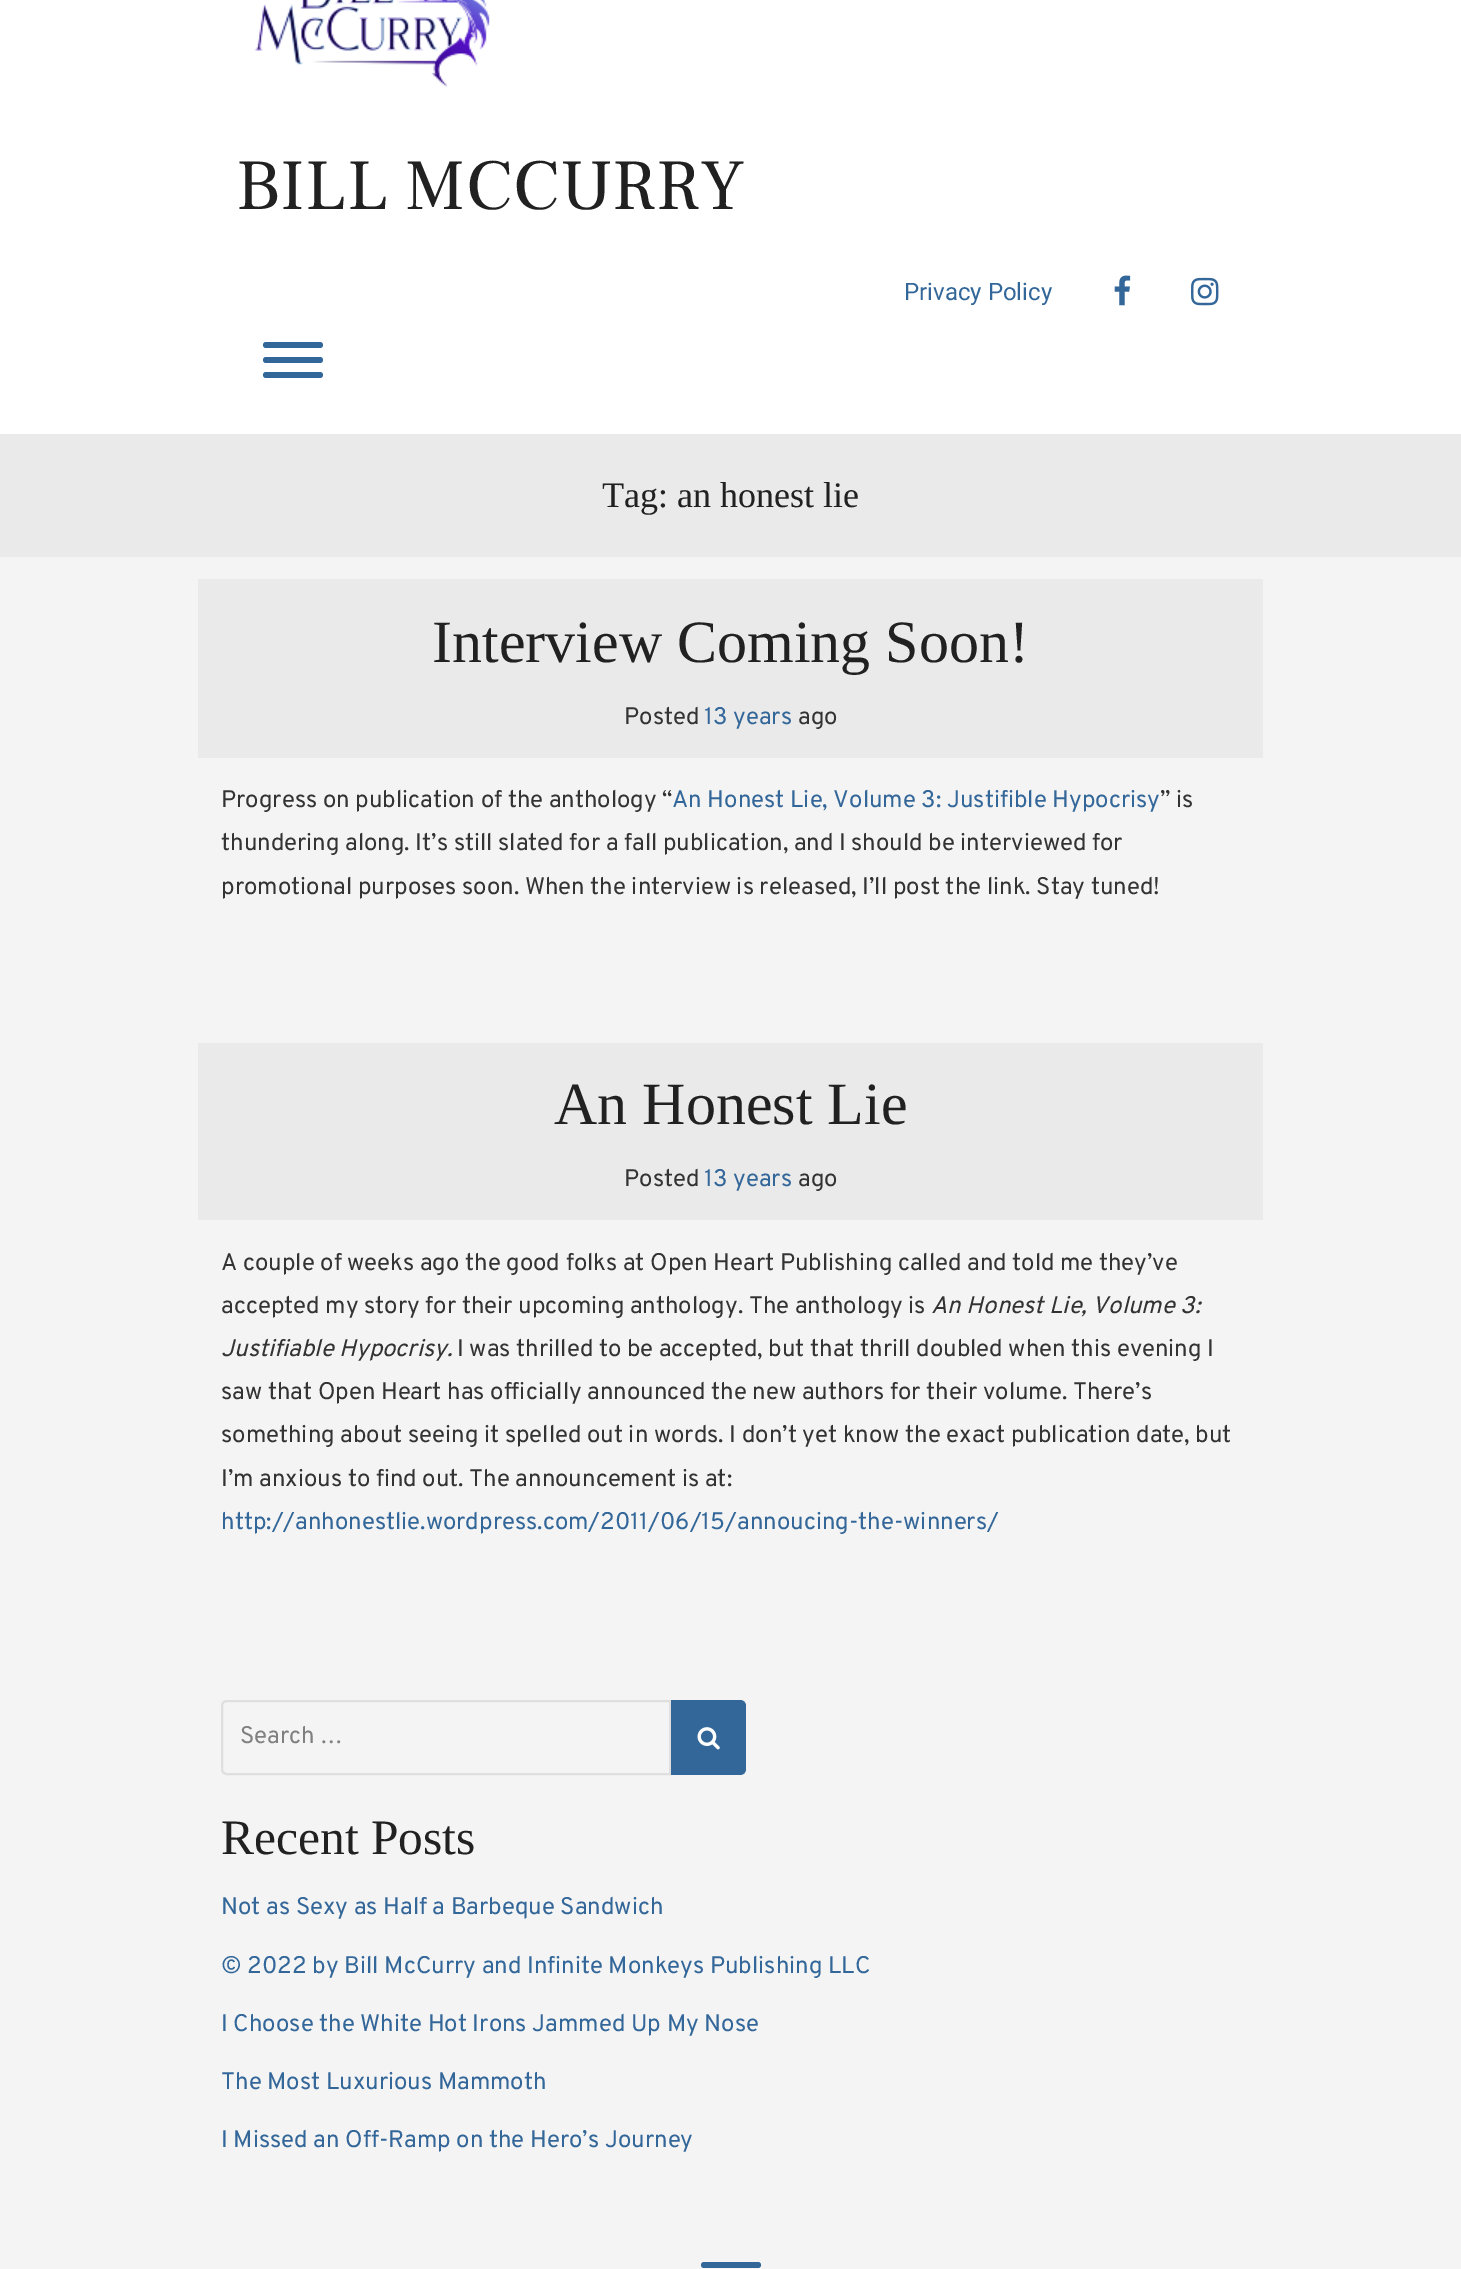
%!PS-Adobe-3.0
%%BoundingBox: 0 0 1461 2269
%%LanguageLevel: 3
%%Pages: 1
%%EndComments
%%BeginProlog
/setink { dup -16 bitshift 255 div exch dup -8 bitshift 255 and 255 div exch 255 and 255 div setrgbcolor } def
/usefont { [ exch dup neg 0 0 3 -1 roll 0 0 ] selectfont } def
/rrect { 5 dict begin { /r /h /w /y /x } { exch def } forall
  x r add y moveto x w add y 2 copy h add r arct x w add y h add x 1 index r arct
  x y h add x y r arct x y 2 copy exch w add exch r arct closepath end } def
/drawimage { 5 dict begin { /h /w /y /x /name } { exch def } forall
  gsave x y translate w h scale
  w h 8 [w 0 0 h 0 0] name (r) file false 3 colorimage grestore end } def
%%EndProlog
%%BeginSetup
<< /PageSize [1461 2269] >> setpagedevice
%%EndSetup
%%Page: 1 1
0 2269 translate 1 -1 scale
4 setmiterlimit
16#F4F4F4 setink
0 0 1461 2269 rectfill
16#FFFFFF setink
0 0 1461 434 rectfill
(img1.raw) 254 0 236 87 drawimage
/FrankRuhlLibre-Regular 72 usefont
16#212121 setink
236 209 moveto (BILL MCCURRY) show
/Roboto-Regular 24 usefont
16#336699 setink
904 300 moveto (Privacy Policy) show
(img2.raw) 1114 275 17 31 drawimage
(img3.raw) 1191 277 28 29 drawimage
263 372 60 6 3 rrect fill
263 342 60 6 3 rrect fill
263 357 60 6 3 rrect fill
16#EAEAEA setink
0 434 1461 123 rectfill
/Tinos-Regular 36 usefont
16#212121 setink
602 507 moveto (Tag: an honest lie) show
16#EAEAEA setink
198 579 1065 179 rectfill
/Tinos-Regular 60 usefont
16#212121 setink
432 662 moveto (Interview Coming Soon!) show
/Overpass-Regular 24 usefont
16#333333 setink
624 724 moveto (Posted) show
16#336699 setink
704 724 moveto (13 years) show
16#333333 setink
798 724 moveto (ago) show
221 807 moveto (Progress on publication of the anthology “) show
16#336699 setink
672 807 moveto (An Honest Lie, Volume 3: Justifible Hypocrisy) show
16#333333 setink
[
    [(” is) 1160 807]
    [(thundering along. It’s still slated for a fall publication, and I should be interviewed for) 221 850]
    [(promotional purposes soon. When the interview is released, I’ll post the link. Stay tuned!) 221 894]
] { aload pop moveto show } forall
16#EAEAEA setink
198 1043 1065 177 rectfill
/Tinos-Regular 60 usefont
16#212121 setink
554 1124 moveto (An Honest Lie) show
/Overpass-Regular 24 usefont
16#333333 setink
624 1186 moveto (Posted) show
16#336699 setink
704 1186 moveto (13 years) show
16#333333 setink
[
    [(ago) 798 1186]
    [(A couple of weeks ago the good folks at Open Heart Publishing called and told me they’ve) 221 1270]
    [(accepted my story for their upcoming anthology. The anthology is) 221 1313]
] { aload pop moveto show } forall
/Overpass-Italic 24 usefont
931 1313 moveto (An Honest Lie, Volume 3:) show
221 1356 moveto (Justifiable Hypocrisy.) show
/Overpass-Regular 24 usefont
[
    [(I was thrilled to be accepted, but that thrill doubled when this evening I) 457 1356]
    [(saw that Open Heart has officially announced the new authors for their volume. There’s) 221 1399]
    [(something about seeing it spelled out in words. I don’t yet know the exact publication date, but) 221 1442]
    [(I’m anxious to find out. The announcement is at:) 221 1486]
] { aload pop moveto show } forall
16#336699 setink
221 1529 moveto (http://anhonestlie.wordpress.com/2011/06/15/annoucing-the-winners/) show
16#DFDFDF setink
2 setlinewidth
227 1701 moveto 670 1701 lineto 670 1774 lineto 227 1774 lineto 224 1774 222 1772 222 1769 curveto 222 1706 lineto 222 1703 224 1701 227 1701 curveto closepath stroke
16#808080 setink
240 1743 moveto (Search …) show
16#336699 setink
671 1700 moveto 740 1700 lineto 743.5 1700 746 1702.5 746 1706 curveto 746 1769 lineto 746 1772.5 743.5 1775 740 1775 curveto 671 1775 lineto closepath fill
(img4.raw) 697 1727 23 23 drawimage
/Tinos-Regular 49.5 usefont
16#212121 setink
221 1854 moveto (Recent Posts) show
/Overpass-Regular 24 usefont
16#336699 setink
[
    [(Not as Sexy as Half a Barbeque Sandwich) 221 1914]
    [(© 2022 by Bill McCurry and Infinite Monkeys Publishing LLC) 221 1973]
    [(I Choose the White Hot Irons Jammed Up My Nose) 221 2031]
    [(The Most Luxurious Mammoth) 221 2089]
    [(I Missed an Off-Ramp on the Hero’s Journey) 221 2147]
] { aload pop moveto show } forall
701 2262 60 6 3 rrect fill
showpage
%%EOF
